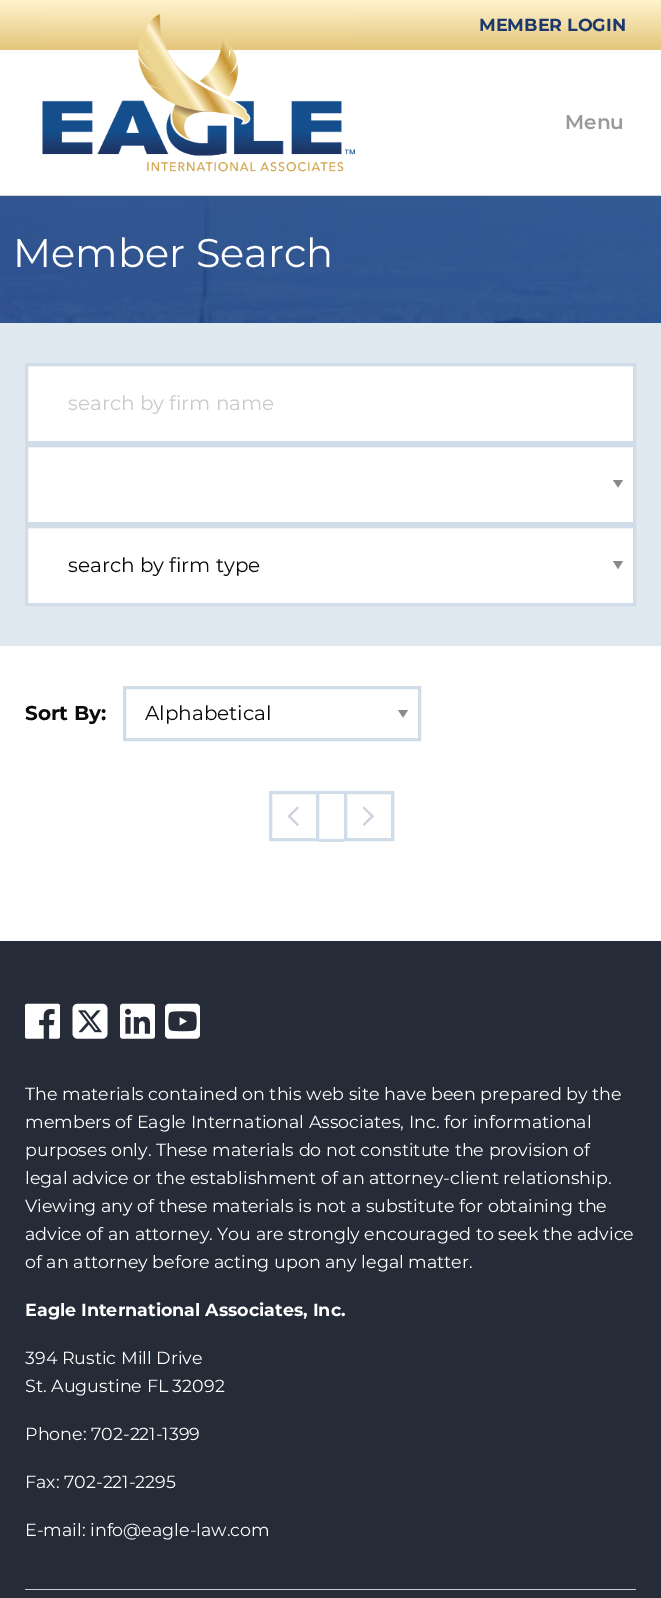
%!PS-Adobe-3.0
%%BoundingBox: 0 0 661 1598
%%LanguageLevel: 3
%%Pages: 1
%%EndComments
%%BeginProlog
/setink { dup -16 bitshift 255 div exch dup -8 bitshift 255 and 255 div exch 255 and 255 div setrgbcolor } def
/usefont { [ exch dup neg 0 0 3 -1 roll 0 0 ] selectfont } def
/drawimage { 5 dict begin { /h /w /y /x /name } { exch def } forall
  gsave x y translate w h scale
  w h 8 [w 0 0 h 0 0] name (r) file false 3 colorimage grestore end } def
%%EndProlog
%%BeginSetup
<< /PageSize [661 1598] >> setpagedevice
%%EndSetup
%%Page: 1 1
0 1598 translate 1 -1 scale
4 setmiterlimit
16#FFFFFF setink
0 0 661 1598 rectfill
gsave 0 0 moveto 661 0 lineto 661 50 lineto 0 50 lineto closepath clip newpath
<< /ShadingType 2 /ColorSpace /DeviceRGB /Coords [331 0 331 50] /Extend [true true] /Function << /FunctionType 2 /Domain [0 1] /C0 [1 0.957 0.812] /C1 [0.894 0.773 0.478] /N 1 >> >> shfill grestore
/Montserrat-Bold 17.5 usefont
16#1D396B setink
479 31 moveto (MEMBER LOGIN) show
16#D3D5D7 setink
0 195 661 1 rectfill
(img1.raw) 42 13 313 159 drawimage
/Montserrat-SemiBold 20 usefont
16#999999 setink
565 129 moveto (Menu) show
(img2.raw) 0 196 661 127 drawimage
/Montserrat-Regular 40 usefont
16#FFFFFF setink
13 267 moveto (Member Search) show
16#E0E8F0 setink
0 323 661 323 rectfill
16#FFFFFF setink
26.5 364.5 moveto 634.5 364.5 lineto 634.5 442.5 lineto 26.5 442.5 lineto closepath gsave fill grestore
16#D0DCE8 setink
3 setlinewidth
stroke
/Montserrat-Regular 20 usefont
16#CACACA setink
68 410 moveto (search by firm name) show
16#FFFFFF setink
28 447 605 75 rectfill
16#8A8A8A setink
613 480 moveto 623 480 lineto 618 487.5 lineto closepath fill
16#D0DCE8 setink
26.5 445.5 608 78 rectstroke
16#FFFFFF setink
28 528 605 75 rectfill
16#8A8A8A setink
613 561 moveto 623 561 lineto 618 569 lineto closepath fill
16#D0DCE8 setink
26.5 526.5 608 78 rectstroke
16#0A0A0A setink
68 572 moveto (search by firm type) show
/Montserrat-Bold 20 usefont
25 720 moveto (Sort By:) show
16#8A8A8A setink
398 710 moveto 408 710 lineto 403 717.5 lineto closepath fill
16#D0DCE8 setink
124.5 687.5 295 52 rectstroke
/Montserrat-Regular 20 usefont
16#0A0A0A setink
145 720 moveto (Alphabetical) show
16#D0DCE8 setink
270.5 792.5 47 47 rectstroke
(img3.raw) 288 806 11 20 drawimage
319 791 25 3 rectfill
319 839 25 3 rectfill
345.5 792.5 47 47 rectstroke
(img4.raw) 363 806 11 20 drawimage
16#252C38 setink
0 941 661 657 rectfill
(img5.raw) 25 1003 35 36 drawimage
(img6.raw) 72 1003 36 36 drawimage
(img7.raw) 120 1003 35 36 drawimage
(img8.raw) 165 1003 35 36 drawimage
/Montserrat-Regular 17.5 usefont
16#FFFFFF setink
[
    [(The materials contained on this web site have been prepared by the) 25 1100]
    [(members of Eagle International Associates, Inc. for informational) 25 1128]
    [(purposes only. These materials do not constitute the provision of) 25 1156]
    [(legal advice or the establishment of an attorney-client relationship.) 25 1184]
    [(Viewing any of these materials is not a substitute for obtaining the) 25 1212]
    [(advice of an attorney. You are strongly encouraged to seek the advice) 25 1240]
    [(of an attorney before acting upon any legal matter.) 25 1268]
] { aload pop moveto show } forall
/Montserrat-Bold 17.5 usefont
25 1316 moveto (Eagle International Associates, Inc.) show
/Montserrat-Regular 17.5 usefont
[
    [(394 Rustic Mill Drive) 25 1364]
    [(St. Augustine FL 32092) 25 1392]
    [(Phone: 702-221-1399) 25 1440]
    [(Fax: 702-221-2295) 25 1488]
    [(E-mail: info@eagle-law.com) 25 1536]
] { aload pop moveto show } forall
16#CACACA setink
25 1589 611 1 rectfill
showpage
%%EOF
